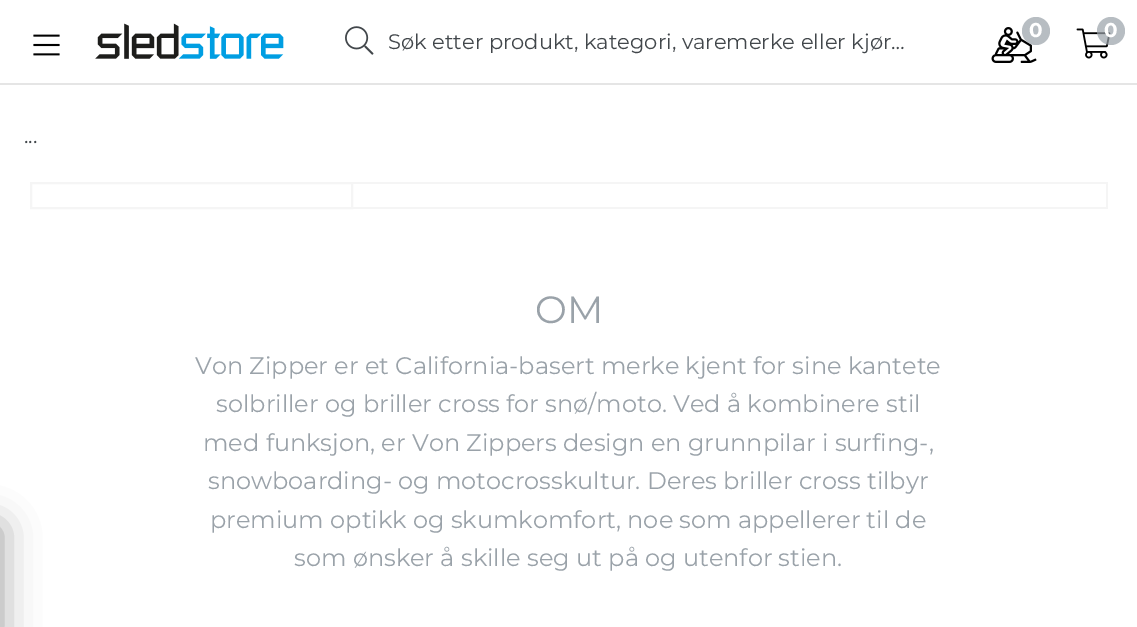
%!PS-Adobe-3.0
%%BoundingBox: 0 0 1137 627
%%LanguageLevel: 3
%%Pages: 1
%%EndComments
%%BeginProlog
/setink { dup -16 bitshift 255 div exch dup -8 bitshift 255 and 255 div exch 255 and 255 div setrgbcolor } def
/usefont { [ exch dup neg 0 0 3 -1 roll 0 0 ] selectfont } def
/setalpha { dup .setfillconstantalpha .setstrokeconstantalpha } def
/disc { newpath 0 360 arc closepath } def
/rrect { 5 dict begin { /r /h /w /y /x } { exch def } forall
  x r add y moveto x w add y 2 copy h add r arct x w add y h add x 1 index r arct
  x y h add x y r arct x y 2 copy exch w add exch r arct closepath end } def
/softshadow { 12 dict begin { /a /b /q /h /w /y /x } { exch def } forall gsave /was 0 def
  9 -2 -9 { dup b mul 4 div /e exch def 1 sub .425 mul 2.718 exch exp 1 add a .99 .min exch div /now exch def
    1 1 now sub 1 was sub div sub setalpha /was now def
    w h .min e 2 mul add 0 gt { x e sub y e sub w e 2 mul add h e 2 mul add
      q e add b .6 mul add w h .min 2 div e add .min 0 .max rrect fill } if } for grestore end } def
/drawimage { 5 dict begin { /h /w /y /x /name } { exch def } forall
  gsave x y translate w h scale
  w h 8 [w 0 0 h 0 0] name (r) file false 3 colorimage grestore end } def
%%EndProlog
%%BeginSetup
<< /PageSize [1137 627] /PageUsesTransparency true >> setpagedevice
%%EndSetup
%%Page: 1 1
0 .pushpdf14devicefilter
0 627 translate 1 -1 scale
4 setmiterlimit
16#FFFFFF setink
0 0 1137 627 rectfill
16#E5E5E5 setink
0 83 1137 2 rectfill
(img1.raw) 95 23 189 36 drawimage
(img2.raw) 991 27 46 36 drawimage
0.7 setalpha
16#99A1A8 setink
1036 31 14 disc fill
/Montserrat-Bold 20 usefont
1 setalpha
16#FFFFFF setink
1029 37 moveto (0) show
(img3.raw) 1076 28 35 31 drawimage
0.7 setalpha
16#99A1A8 setink
1111 31 14 disc fill
1 setalpha
16#FFFFFF setink
1104 37 moveto (0) show
(img4.raw) 33 34 27 22 drawimage
(img5.raw) 345 26 29 29 drawimage
/Montserrat-Regular 21 usefont
16#42474B setink
388 49 moveto (Søk etter produkt, kategori, varemerke eller kjør…) show
16#000000 setink
-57 527 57 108 0 19 0.4 softshadow
16#42474B setink
24 143 moveto (...) show
16#F5F5F5 setink
2 setlinewidth
31 183 321 25 rectstroke
[
    [353 182 754 2 16#F5F5F5]
    [1106 182 2 27 16#F5F5F5]
    [353 207 754 2 16#F5F5F5]
] { aload pop setink rectfill } forall
/Montserrat-Regular 38 usefont
16#9AA2A9 setink
535 323 moveto (OM) show
/Montserrat-Regular 24 usefont
[
    [(Von Zipper er et California-basert merke kjent for sine kantete) 195 374]
    [(solbriller og briller cross for snø/moto. Ved å kombinere stil) 216 412]
    [(med funksjon, er Von Zippers design en grunnpilar i surfing-,) 203 451]
    [(snowboarding- og motocrosskultur. Deres briller cross tilbyr) 208 489]
    [(premium optikk og skumkomfort, noe som appellerer til de) 210 528]
    [(som ønsker å skille seg ut på og utenfor stien.) 294 566]
] { aload pop moveto show } forall
.poppdf14devicefilter showpage
%%EOF
